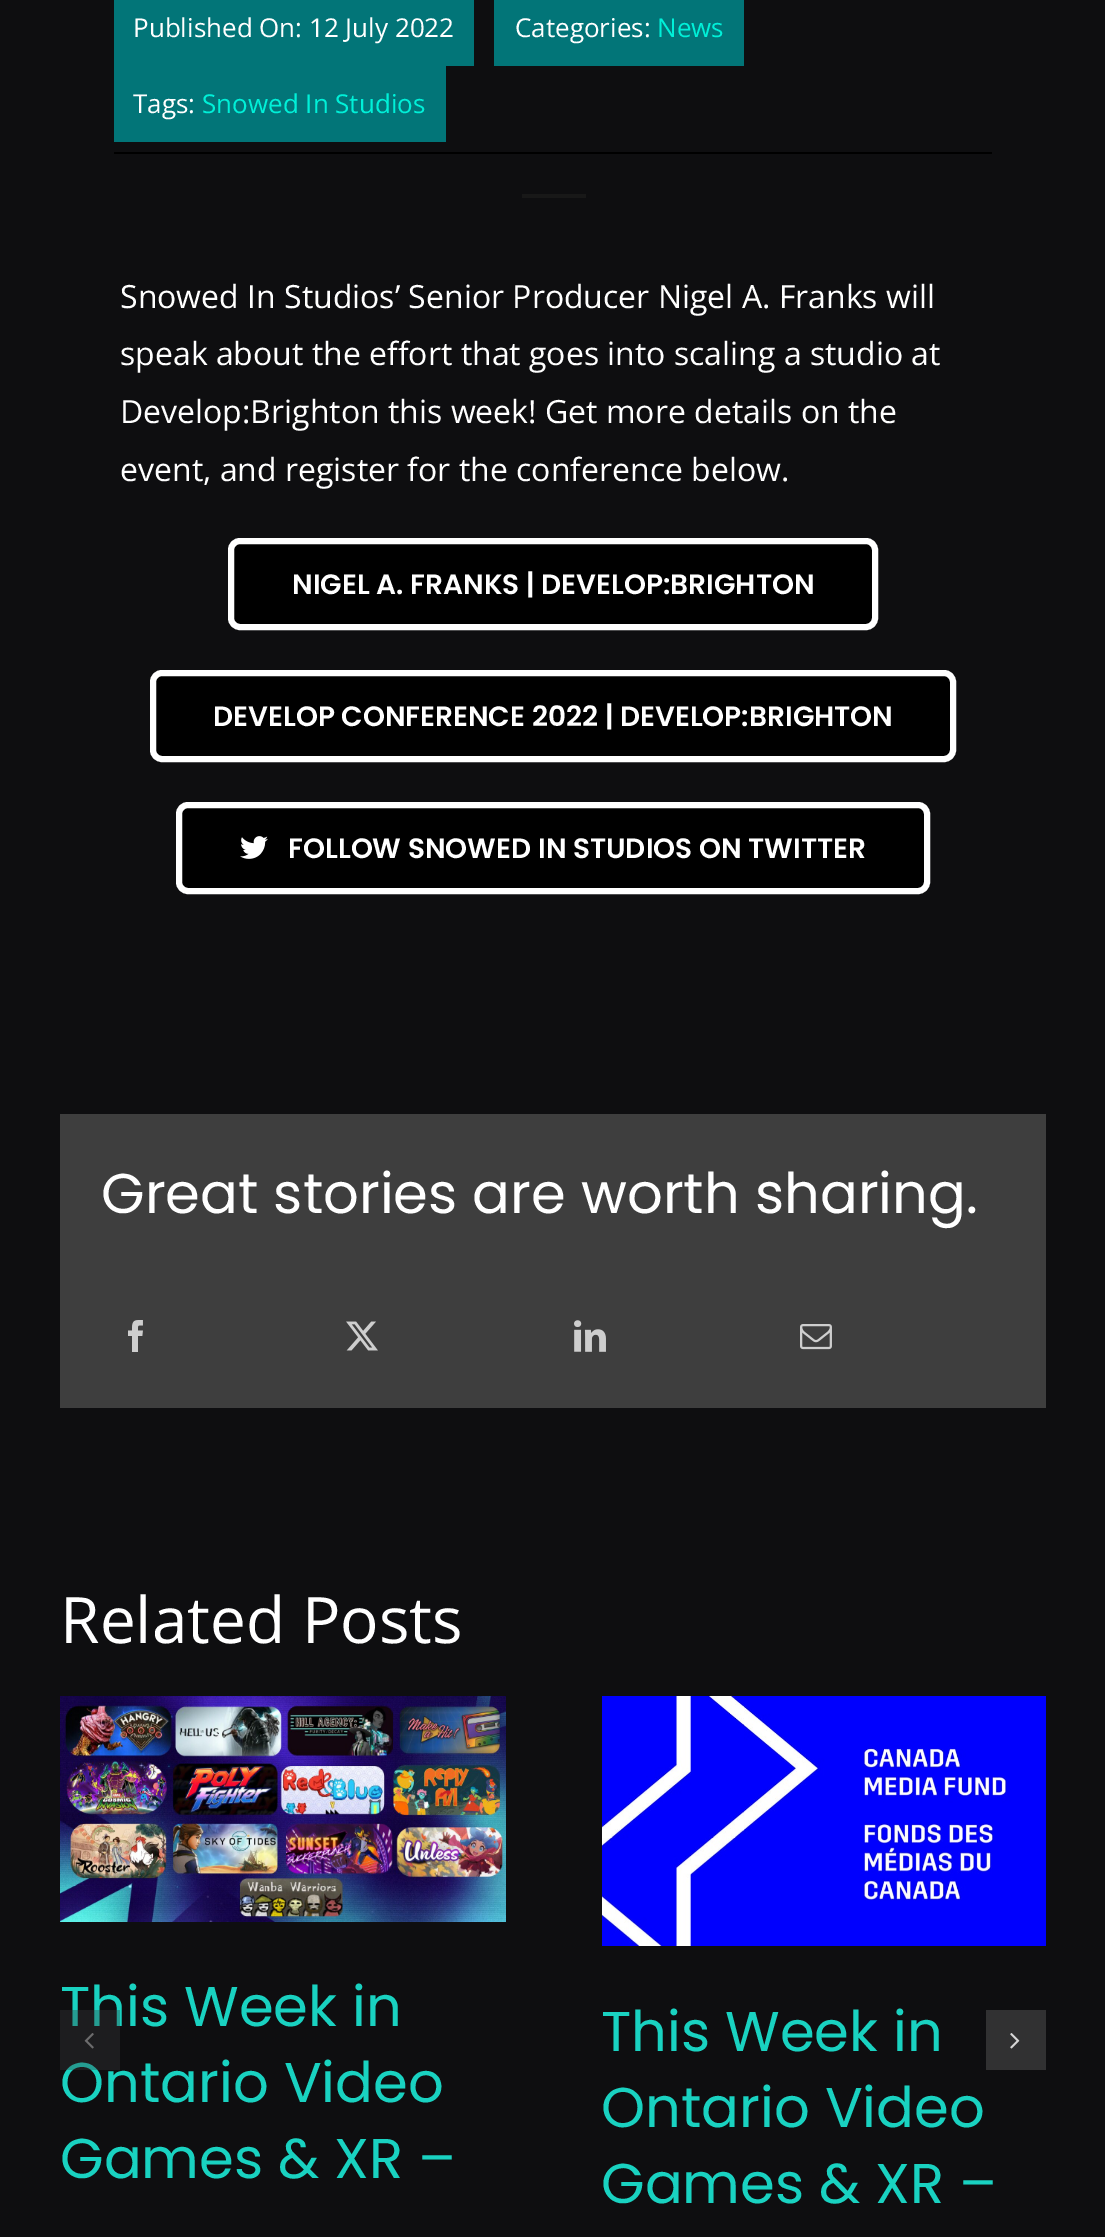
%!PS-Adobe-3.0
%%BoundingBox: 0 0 1105 2237
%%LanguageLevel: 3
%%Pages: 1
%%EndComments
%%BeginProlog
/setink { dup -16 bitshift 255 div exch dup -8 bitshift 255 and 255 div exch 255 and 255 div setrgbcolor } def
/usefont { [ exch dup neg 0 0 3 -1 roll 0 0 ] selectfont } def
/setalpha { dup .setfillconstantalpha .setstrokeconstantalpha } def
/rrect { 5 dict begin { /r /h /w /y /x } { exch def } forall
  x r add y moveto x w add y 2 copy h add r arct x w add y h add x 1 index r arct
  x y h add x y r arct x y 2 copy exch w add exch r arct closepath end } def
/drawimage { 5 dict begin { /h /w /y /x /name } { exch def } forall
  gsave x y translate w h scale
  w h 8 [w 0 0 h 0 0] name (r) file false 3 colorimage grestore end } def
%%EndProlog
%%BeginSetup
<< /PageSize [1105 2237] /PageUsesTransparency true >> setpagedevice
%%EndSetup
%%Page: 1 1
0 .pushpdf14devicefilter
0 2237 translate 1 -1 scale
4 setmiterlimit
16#0E0E10 setink
0 0 1105 2237 rectfill
16#000000 setink
114 152 878 2 rectfill
16#027578 setink
114 0 360 66 rectfill
/OpenSans-Regular 26 usefont
16#FFFFFF setink
133 37 moveto (Published On: 12 July 2022) show
16#027578 setink
494 0 250 66 rectfill
16#FFFFFF setink
515 37 moveto (Categories:) show
16#00F0D8 setink
657 37 moveto (News) show
16#027578 setink
114 66 332 76 rectfill
16#FFFFFF setink
133 113 moveto (Tags:) show
16#00F0D8 setink
202 113 moveto (Snowed In Studios) show
16#181818 setink
522 194 64 4 rectfill
/OpenSans-Regular 32 usefont
16#FFFFFF setink
[
    [(Snowed In Studios’ Senior Producer Nigel A. Franks will) 120 308]
    [(speak about the effort that goes into scaling a studio at) 120 365]
    [(Develop:Brighton this week! Get more details on the) 120 423]
    [(event, and register for the conference below.) 120 481]
] { aload pop moveto show } forall
16#000000 setink
231 541 644 86 9 rrect gsave fill grestore
16#FFFFFF setink
6 setlinewidth
stroke
/Poppins-SemiBold 28 usefont
292 594 moveto (NIGEL A. FRANKS | DEVELOP:BRIGHTON) show
16#000000 setink
153 673 800 86 9 rrect gsave fill grestore
16#FFFFFF setink
stroke
213 726 moveto (DEVELOP CONFERENCE 2022 | DEVELOP:BRIGHTON) show
16#000000 setink
179 805 748 86 9 rrect gsave fill grestore
16#FFFFFF setink
stroke
(img1.raw) 240 836 28 23 drawimage
288 858 moveto (FOLLOW SNOWED IN STUDIOS ON TWITTER) show
16#3E3E3E setink
60 1114 986 294 rectfill
/Poppins-Regular 56 usefont
16#FFFFFF setink
101 1213 moveto (Great stories are worth sharing.) show
(img2.raw) 128 1320 15 32 drawimage
(img3.raw) 346 1321 32 30 drawimage
(img4.raw) 574 1320 32 32 drawimage
(img5.raw) 800 1324 32 26 drawimage
/OpenSans-Regular 64 usefont
60 1643 moveto (Related Posts) show
(img6.raw) 60 1696 446 226 drawimage
/Poppins-Regular 56 usefont
16#19D2C1 setink
[
    [(This Week in) 60 2026]
    [(Ontario Video) 60 2102]
    [(Games & XR –) 60 2178]
] { aload pop moveto show } forall
(img7.raw) 602 1696 444 250 drawimage
[
    [(This Week in) 601 2051]
    [(Ontario Video) 601 2127]
    [(Games & XR –) 601 2203]
] { aload pop moveto show } forall
0.35 setalpha
16#3A3A3A setink
60 2010 60 60 rectfill
1 setalpha
(img8.raw) 84 2033 10 16 drawimage
16#313132 setink
986 2010 60 60 rectfill
(img9.raw) 1010 2033 10 16 drawimage
.poppdf14devicefilter showpage
%%EOF
